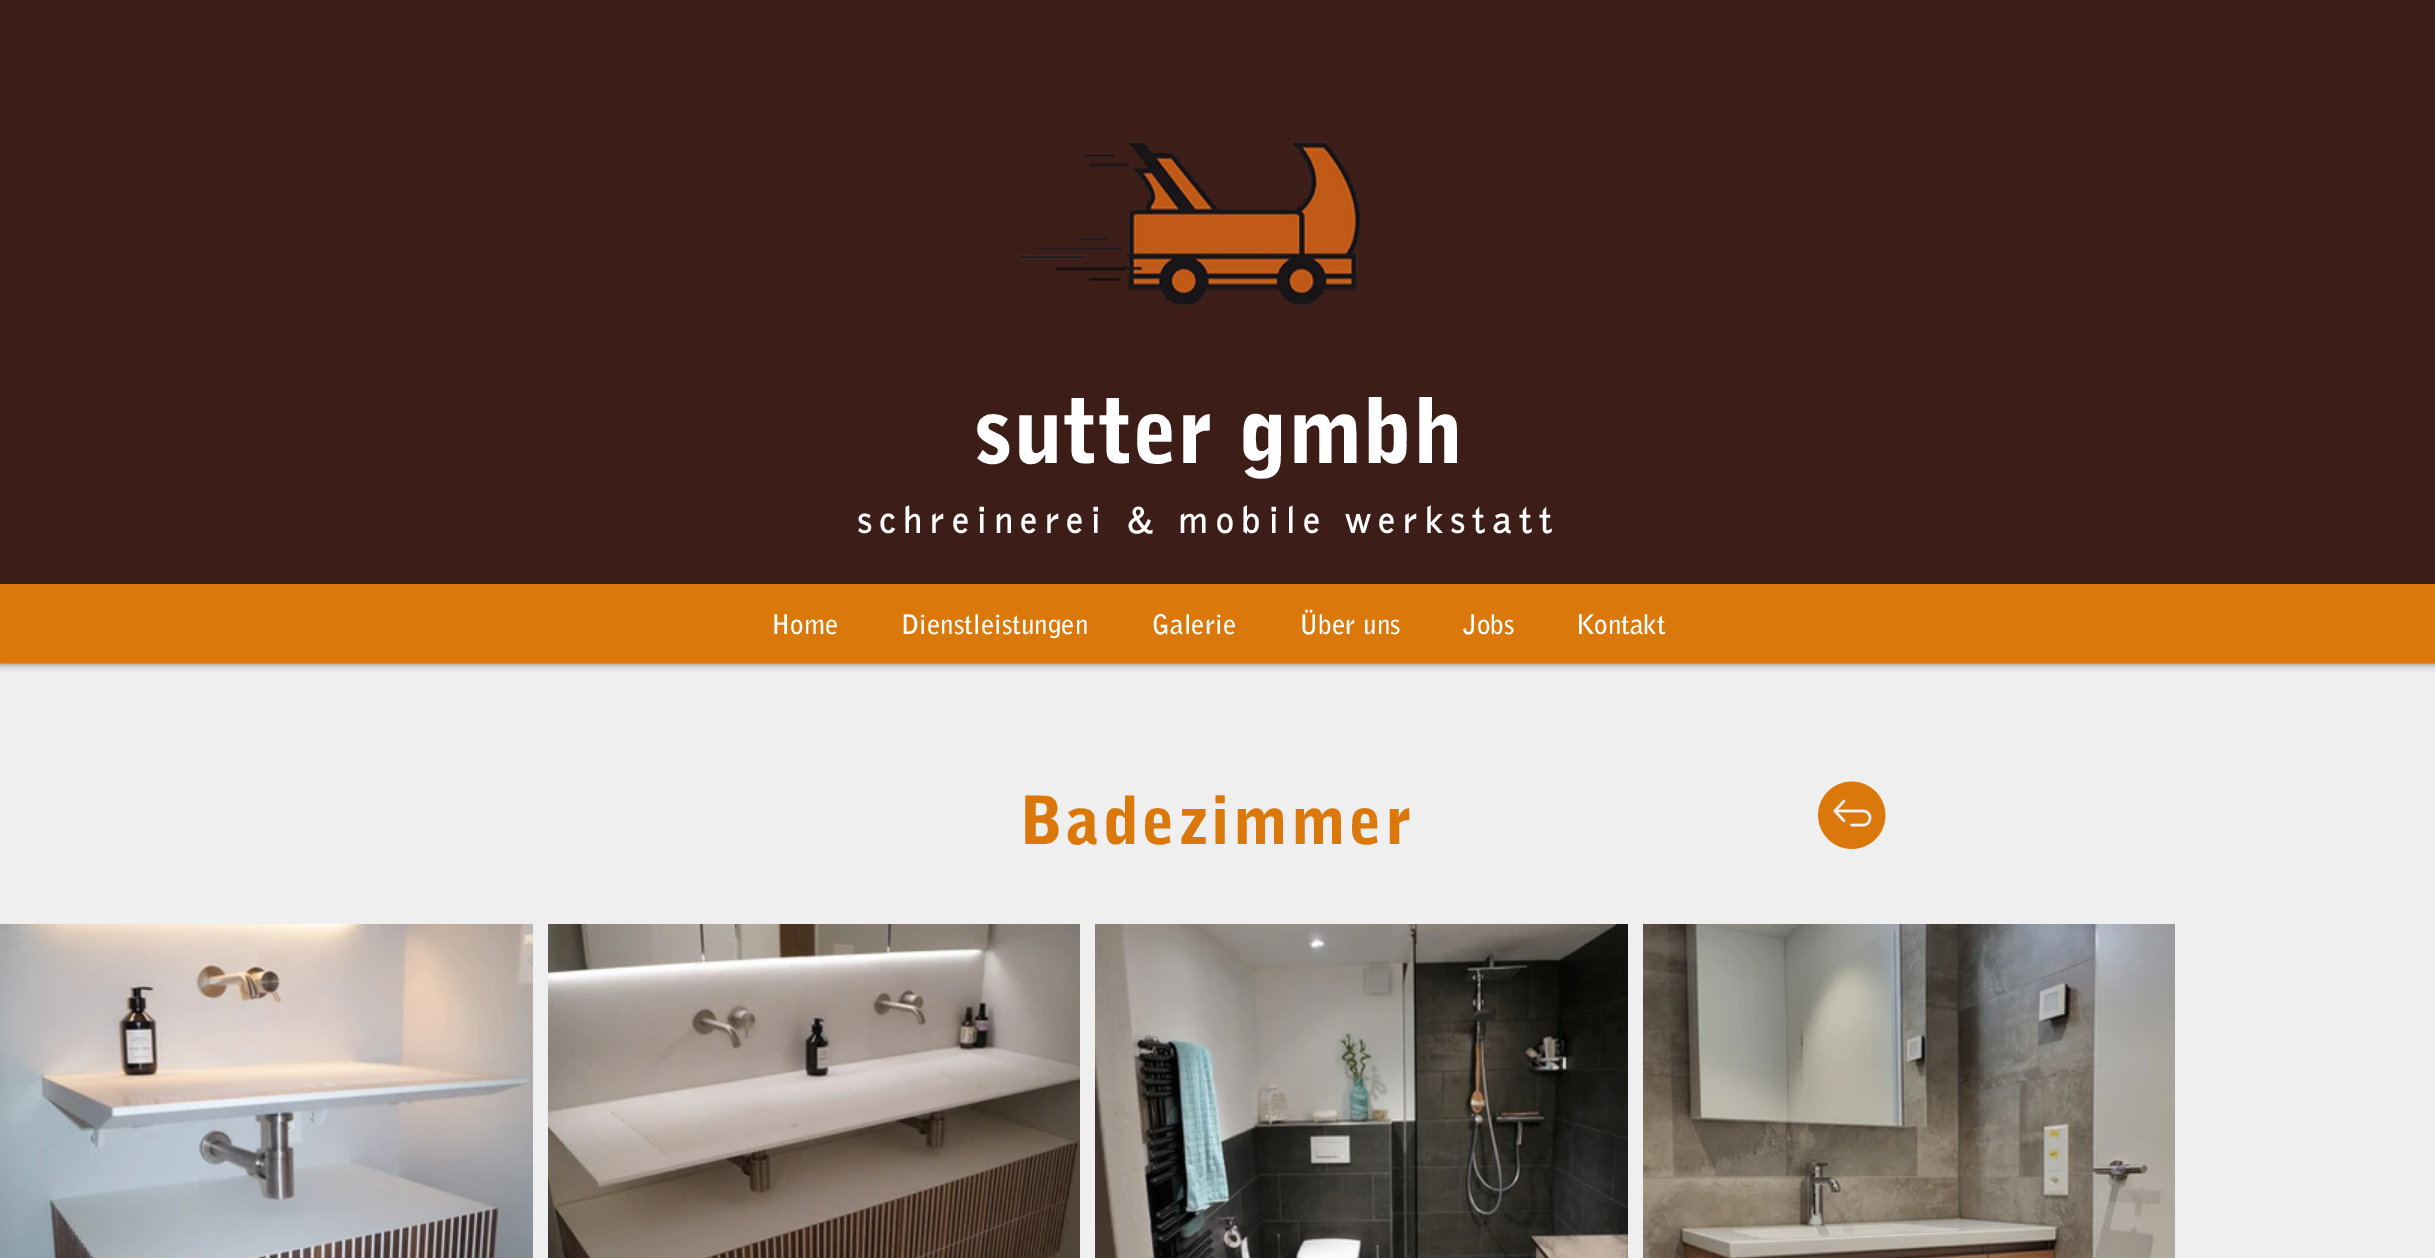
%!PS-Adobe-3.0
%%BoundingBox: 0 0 2435 1258
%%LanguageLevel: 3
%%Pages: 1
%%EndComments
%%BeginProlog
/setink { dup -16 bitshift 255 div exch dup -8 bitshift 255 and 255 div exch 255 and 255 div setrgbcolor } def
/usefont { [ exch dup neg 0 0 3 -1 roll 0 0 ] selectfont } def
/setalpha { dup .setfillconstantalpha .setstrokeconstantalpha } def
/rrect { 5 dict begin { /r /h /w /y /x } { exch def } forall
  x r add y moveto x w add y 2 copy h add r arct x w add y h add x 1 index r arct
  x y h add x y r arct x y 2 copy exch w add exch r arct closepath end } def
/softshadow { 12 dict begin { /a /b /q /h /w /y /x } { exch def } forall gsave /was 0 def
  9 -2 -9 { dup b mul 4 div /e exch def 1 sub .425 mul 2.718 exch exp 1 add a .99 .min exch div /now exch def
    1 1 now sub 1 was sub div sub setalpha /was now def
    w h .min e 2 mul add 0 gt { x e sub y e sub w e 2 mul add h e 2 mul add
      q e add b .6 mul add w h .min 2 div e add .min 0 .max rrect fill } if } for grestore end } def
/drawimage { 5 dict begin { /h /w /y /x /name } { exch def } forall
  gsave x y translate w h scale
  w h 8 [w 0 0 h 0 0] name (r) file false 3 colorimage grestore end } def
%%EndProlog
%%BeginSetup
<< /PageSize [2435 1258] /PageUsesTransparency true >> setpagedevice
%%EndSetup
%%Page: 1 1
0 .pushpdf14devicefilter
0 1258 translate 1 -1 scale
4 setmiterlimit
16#EFEFEF setink
0 0 2435 1258 rectfill
16#000000 setink
0 0 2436 663 0 4 0.7 softshadow
16#DB780B setink
0 584 2435 79 rectfill
16#3C1D17 setink
0 0 2435 584 rectfill
(img1.raw) 1018 141 344 165 drawimage
/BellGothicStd-Black 90 usefont
16#FFFFFF setink
973 463 moveto (sutter gmbh) show
/BellGothicStd-Bold 37.5 usefont
857 533 moveto 7.5 0 (schreinerei & mobile werkstatt) ashow
/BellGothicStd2-Bold 27 usefont
[
    [(Home) 771 634]
    [(Dienstleistungen) 901 634]
    [(Galerie) 1152 634]
    [(Über uns) 1299 634]
    [(Jobs) 1463 634]
    [(Kontakt) 1576 634]
] { aload pop moveto show } forall
/BellGothicStd-Black 66 usefont
16#DB780B setink
1019 844 moveto 3.25 0 (Badezimmer) ashow
(img2.raw) 1818 781 68 68 drawimage
(img3.raw) 0 924 533 334 drawimage
(img4.raw) 548 924 532 334 drawimage
(img5.raw) 1095 924 533 334 drawimage
(img6.raw) 1643 924 532 334 drawimage
.poppdf14devicefilter showpage
%%EOF
